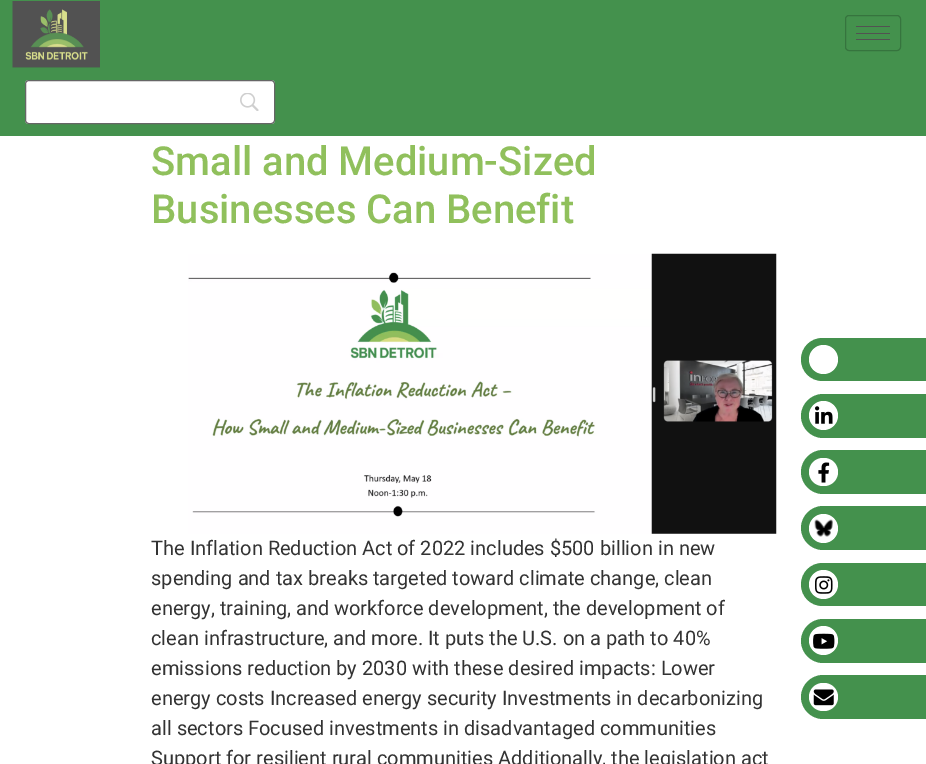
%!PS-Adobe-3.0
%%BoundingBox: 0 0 926 764
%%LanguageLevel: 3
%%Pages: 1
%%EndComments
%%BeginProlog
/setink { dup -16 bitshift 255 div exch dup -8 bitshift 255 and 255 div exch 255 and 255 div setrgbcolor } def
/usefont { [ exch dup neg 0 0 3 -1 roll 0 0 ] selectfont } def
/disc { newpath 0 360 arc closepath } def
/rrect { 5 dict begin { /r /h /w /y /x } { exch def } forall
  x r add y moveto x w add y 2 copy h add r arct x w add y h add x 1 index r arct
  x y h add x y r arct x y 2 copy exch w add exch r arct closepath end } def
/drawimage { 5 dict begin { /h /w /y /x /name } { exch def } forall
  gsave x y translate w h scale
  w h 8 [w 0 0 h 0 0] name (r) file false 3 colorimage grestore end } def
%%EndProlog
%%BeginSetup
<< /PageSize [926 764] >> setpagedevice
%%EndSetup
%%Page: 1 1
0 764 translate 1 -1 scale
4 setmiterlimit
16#FFFFFF setink
0 0 926 764 rectfill
16#44914D setink
0 0 926 136 rectfill
(img1.raw) 12 1 88 67 drawimage
16#36743E setink
845.5 15.5 55 35 3.5 rrect stroke
[
    [856 26 34 1 16#525252]
    [856 33 34 1 16#525252]
    [856 39 34 1 16#525252]
] { aload pop setink rectfill } forall
16#FFFFFF setink
25 80 250 44 4 rrect fill
(img2.raw) 240 93 19 18 drawimage
16#666666 setink
25.5 80.5 249 43 3.5 rrect stroke
16#44914D setink
822.5 338 moveto 926 338 lineto 926 381 lineto 822.5 381 lineto 810.5 381 801 371.5 801 359.5 curveto 801 347.5 810.5 338 822.5 338 curveto closepath fill
16#FFFFFF setink
823.5 359.5 14.5 disc fill
16#44914D setink
823 394 moveto 926 394 lineto 926 438 lineto 823 438 lineto 811 438 801 428 801 416 curveto 801 404 811 394 823 394 curveto closepath fill
16#FFFFFF setink
823.5 415.5 14.5 disc fill
(img3.raw) 815 406 18 18 drawimage
16#44914D setink
823 450 moveto 926 450 lineto 926 494 lineto 823 494 lineto 811 494 801 484 801 472 curveto 801 460 811 450 823 450 curveto closepath fill
16#FFFFFF setink
809 458 29 28 14 rrect fill
(img4.raw) 818 462 12 21 drawimage
16#44914D setink
823 506 moveto 926 506 lineto 926 550 lineto 823 550 lineto 811 550 801 540 801 528 curveto 801 516 811 506 823 506 curveto closepath fill
16#FFFFFF setink
823.5 528.5 14.5 disc fill
(img5.raw) 814 519 19 18 drawimage
16#44914D setink
822.5 563 moveto 926 563 lineto 926 606 lineto 822.5 606 lineto 810.5 606 801 596.5 801 584.5 curveto 801 572.5 810.5 563 822.5 563 curveto closepath fill
16#FFFFFF setink
823.5 584.5 14.5 disc fill
(img6.raw) 815 576 18 18 drawimage
16#44914D setink
823 619 moveto 926 619 lineto 926 663 lineto 823 663 lineto 811 663 801 653 801 641 curveto 801 629 811 619 823 619 curveto closepath fill
16#FFFFFF setink
823.5 640.5 14.5 disc fill
(img7.raw) 813 633 22 16 drawimage
16#44914D setink
823 675 moveto 926 675 lineto 926 719 lineto 823 719 lineto 811 719 801 709 801 697 curveto 801 685 811 675 823 675 curveto closepath fill
16#FFFFFF setink
809 683 29 28 14 rrect fill
(img8.raw) 813 689 21 17 drawimage
/Roboto-Medium 40 usefont
16#90C05C setink
151 175 moveto (Small and Medium-Sized) show
151 223 moveto (Businesses Can Benefit) show
(img9.raw) 188 253 589 281 drawimage
/Roboto-Regular 20 usefont
16#333333 setink
[
    [(The Inflation Reduction Act of 2022 includes $500 billion in new) 151 555]
    [(spending and tax breaks targeted toward climate change, clean) 151 585]
    [(energy, training, and workforce development, the development of) 151 615]
    [(clean infrastructure, and more. It puts the U.S. on a path to 40%) 151 645]
    [(emissions reduction by 2030 with these desired impacts: Lower) 151 675]
    [(energy costs Increased energy security Investments in decarbonizing) 151 705]
    [(all sectors Focused investments in disadvantaged communities) 151 735]
    [(Support for resilient rural communities Additionally, the legislation act) 151 765]
] { aload pop moveto show } forall
showpage
%%EOF
